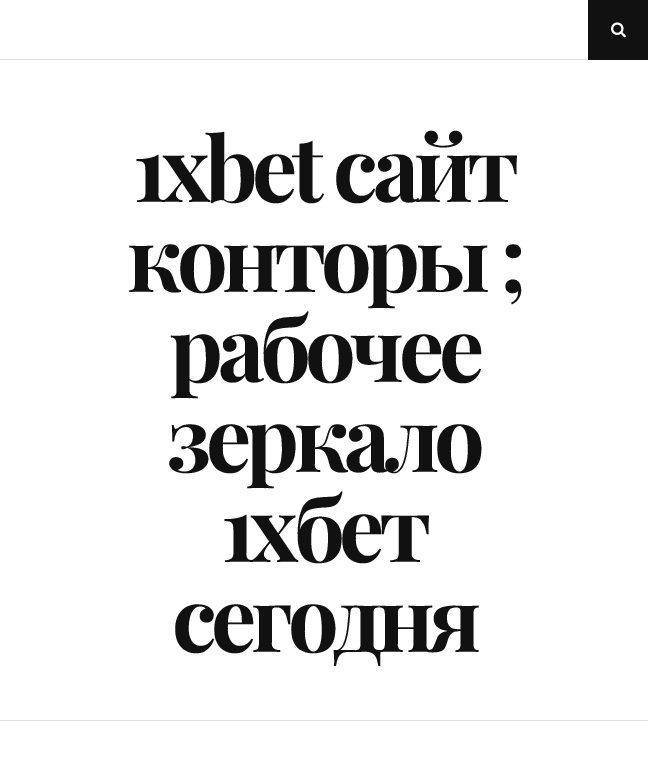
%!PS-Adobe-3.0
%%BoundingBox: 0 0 648 775
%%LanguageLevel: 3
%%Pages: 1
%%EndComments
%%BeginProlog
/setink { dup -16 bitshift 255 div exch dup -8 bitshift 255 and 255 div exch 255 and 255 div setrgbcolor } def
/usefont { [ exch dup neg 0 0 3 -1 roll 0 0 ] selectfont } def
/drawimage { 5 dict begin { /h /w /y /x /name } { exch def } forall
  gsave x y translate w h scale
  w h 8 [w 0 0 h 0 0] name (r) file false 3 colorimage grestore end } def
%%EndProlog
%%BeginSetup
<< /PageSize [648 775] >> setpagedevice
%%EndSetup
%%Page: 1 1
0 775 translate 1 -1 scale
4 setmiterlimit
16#FFFFFF setink
0 0 648 775 rectfill
[
    [0 720 648 1 16#DEDEDE]
    [0 59 588 1 16#DEDEDE]
    [588 0 60 60 16#111111]
] { aload pop setink rectfill } forall
(img1.raw) 611 22 15 16 drawimage
/PlayfairDisplay-Bold 90 usefont
133 202 moveto -5.5 0 (1xbet сайт) ashow
127 292 moveto -5.5 0 (конторы ;) ashow
169 382 moveto -5.5 0 (рабочее) ashow
167 472 moveto -5.5 0 (зеркало) ashow
221 562 moveto -5.5 0 (1хбет) ashow
172 652 moveto -5.5 0 (сегодня) ashow
showpage
%%EOF
